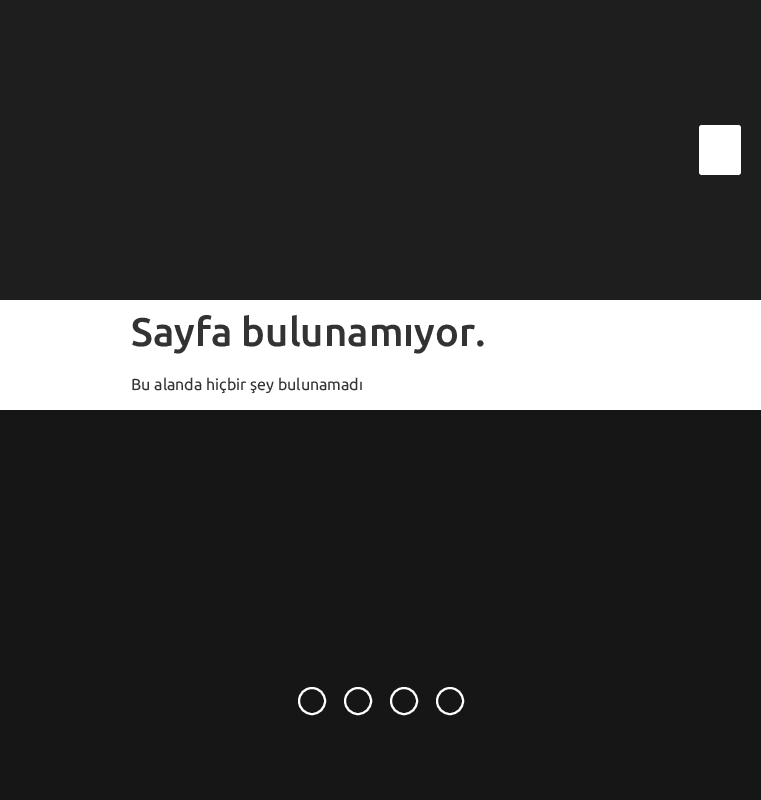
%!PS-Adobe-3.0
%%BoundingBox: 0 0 761 800
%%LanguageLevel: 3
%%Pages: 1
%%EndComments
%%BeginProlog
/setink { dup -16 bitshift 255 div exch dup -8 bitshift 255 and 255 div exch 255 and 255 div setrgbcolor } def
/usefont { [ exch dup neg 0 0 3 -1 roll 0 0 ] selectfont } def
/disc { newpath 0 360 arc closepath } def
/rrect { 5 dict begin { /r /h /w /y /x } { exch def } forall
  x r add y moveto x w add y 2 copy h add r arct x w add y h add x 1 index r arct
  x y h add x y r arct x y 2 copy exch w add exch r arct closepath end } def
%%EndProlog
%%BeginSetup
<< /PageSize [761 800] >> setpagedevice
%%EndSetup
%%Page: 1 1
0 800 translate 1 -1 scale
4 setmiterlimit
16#FFFFFF setink
0 0 761 800 rectfill
16#1F1E1E setink
0 0 761 300 rectfill
16#FFFFFF setink
699 125 42 50 3 rrect fill
/Ubuntu-Medium 40 usefont
16#333333 setink
131 346 moveto (Sayfa bulunamıyor.) show
/Ubuntu-Regular 16 usefont
131 390 moveto (Bu alanda hiçbir şey bulunamadı) show
16#161616 setink
0 410 761 390 rectfill
16#FFFFFF setink
2 setlinewidth
312 701 13 disc stroke
358 701 13 disc stroke
404 701 13 disc stroke
450 701 13 disc stroke
showpage
%%EOF
